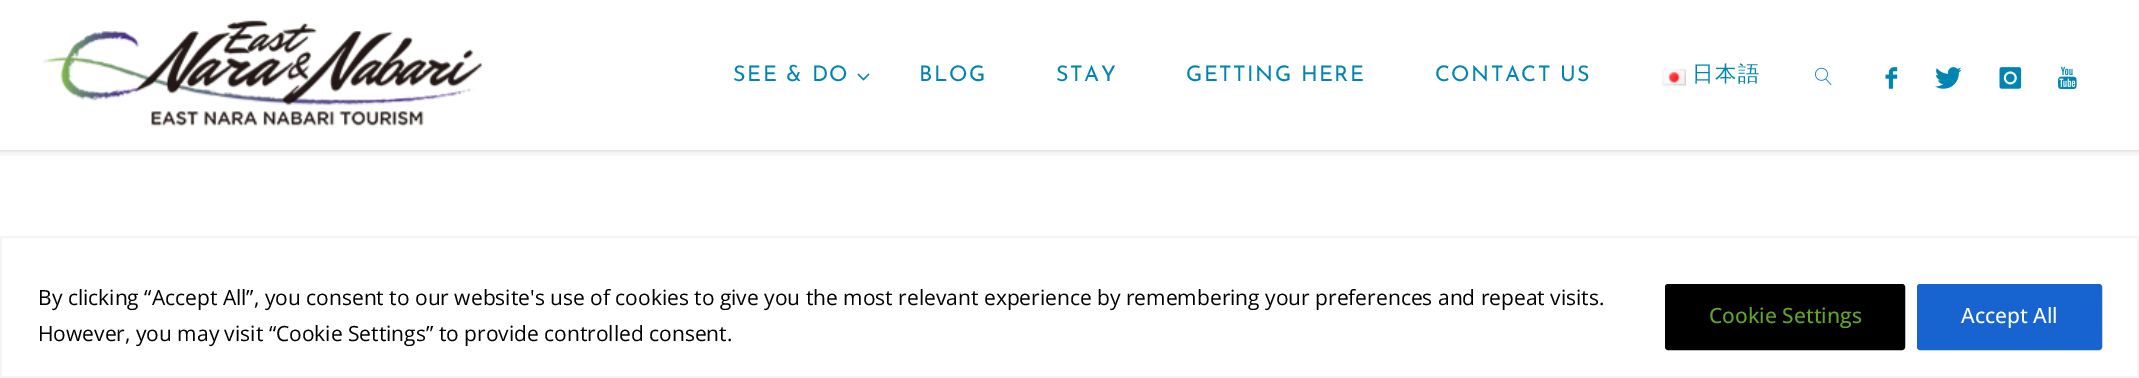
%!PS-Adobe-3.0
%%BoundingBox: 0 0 2139 378
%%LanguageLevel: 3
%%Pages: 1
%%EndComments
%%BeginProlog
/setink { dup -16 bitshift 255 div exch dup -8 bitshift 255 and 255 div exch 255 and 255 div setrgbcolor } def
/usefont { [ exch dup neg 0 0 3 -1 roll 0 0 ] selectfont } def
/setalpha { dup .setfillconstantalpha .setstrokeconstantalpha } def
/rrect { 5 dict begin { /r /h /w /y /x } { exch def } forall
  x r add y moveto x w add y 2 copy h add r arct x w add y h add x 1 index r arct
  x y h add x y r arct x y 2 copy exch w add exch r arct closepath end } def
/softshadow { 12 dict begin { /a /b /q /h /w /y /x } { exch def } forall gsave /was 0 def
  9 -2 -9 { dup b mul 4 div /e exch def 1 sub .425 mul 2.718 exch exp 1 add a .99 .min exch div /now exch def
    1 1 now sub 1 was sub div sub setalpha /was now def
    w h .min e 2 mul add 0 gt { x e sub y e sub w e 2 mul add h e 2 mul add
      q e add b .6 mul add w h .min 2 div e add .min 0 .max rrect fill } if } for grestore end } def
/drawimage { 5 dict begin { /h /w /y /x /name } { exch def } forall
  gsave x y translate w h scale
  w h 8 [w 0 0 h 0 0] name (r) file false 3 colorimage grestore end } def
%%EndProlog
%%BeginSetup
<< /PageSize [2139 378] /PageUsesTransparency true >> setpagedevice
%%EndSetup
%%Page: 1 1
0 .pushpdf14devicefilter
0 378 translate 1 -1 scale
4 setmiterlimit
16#F8F8F8 setink
0 0 2139 378 rectfill
16#FFFFFF setink
0 156 2139 80 rectfill
16#000000 setink
0 0 2139 150 0 2 0.2 softshadow
16#FFFFFF setink
0 0 2139 150 rectfill
(img1.raw) 43 20 439 107 drawimage
/JosefinSans-Regular 21.5 usefont
16#0085B2 setink
733 81 moveto 1.5 0 (SEE & DO) ashow
(img2.raw) 857 73 13 8 drawimage
919 81 moveto 1.5 0 (BLOG) ashow
1056 81 moveto 1.5 0 (STAY) ashow
1186 81 moveto 1.5 0 (GETTING HERE) ashow
1435 81 moveto 1.5 0 (CONTACT US) ashow
(img3.raw) 1662 69 24 17 drawimage
/WenQuanYiZenHei-Medium 21.5 usefont
1692 81 moveto 1.5 0 (日本語) ashow
(img4.raw) 1815 67 17 18 drawimage
(img5.raw) 1885 67 13 22 drawimage
(img6.raw) 1935 67 27 22 drawimage
(img7.raw) 1999 67 23 22 drawimage
(img8.raw) 2058 66 19 24 drawimage
16#FFFFFF setink
1 237 moveto 2138 237 lineto 2138 377 lineto 1 377 lineto closepath gsave fill grestore
16#F4F4F4 setink
2 setlinewidth
stroke
/OpenSans-Regular 21 usefont
16#000000 setink
38 305 moveto (By clicking “Accept All”, you consent to our website's use of cookies to give you the most relevant experience by remembering your preferences and repeat visits.) show
38 341 moveto (However, you may visit “Cookie Settings” to provide controlled consent.) show
1666.5 285.5 237 63 1.5 rrect gsave fill grestore
3 setlinewidth
stroke
/OpenSans-Medium 21 usefont
16#62A329 setink
1709 323 moveto (Cookie Settings) show
16#1764D1 setink
1918.5 285.5 182 63 1.5 rrect gsave fill grestore
stroke
16#FFFFFF setink
1961 323 moveto (Accept All) show
.poppdf14devicefilter showpage
%%EOF
